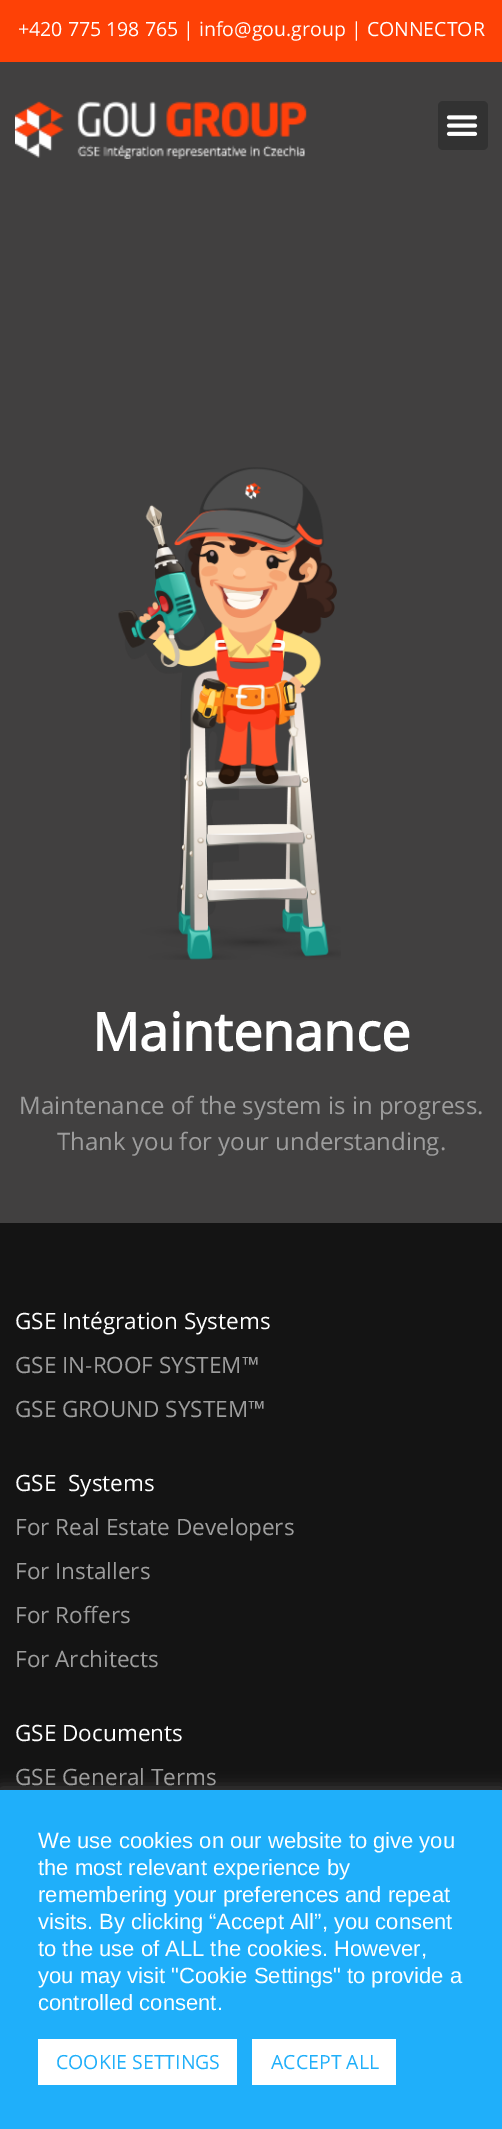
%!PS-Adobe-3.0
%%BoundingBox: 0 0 502 2129
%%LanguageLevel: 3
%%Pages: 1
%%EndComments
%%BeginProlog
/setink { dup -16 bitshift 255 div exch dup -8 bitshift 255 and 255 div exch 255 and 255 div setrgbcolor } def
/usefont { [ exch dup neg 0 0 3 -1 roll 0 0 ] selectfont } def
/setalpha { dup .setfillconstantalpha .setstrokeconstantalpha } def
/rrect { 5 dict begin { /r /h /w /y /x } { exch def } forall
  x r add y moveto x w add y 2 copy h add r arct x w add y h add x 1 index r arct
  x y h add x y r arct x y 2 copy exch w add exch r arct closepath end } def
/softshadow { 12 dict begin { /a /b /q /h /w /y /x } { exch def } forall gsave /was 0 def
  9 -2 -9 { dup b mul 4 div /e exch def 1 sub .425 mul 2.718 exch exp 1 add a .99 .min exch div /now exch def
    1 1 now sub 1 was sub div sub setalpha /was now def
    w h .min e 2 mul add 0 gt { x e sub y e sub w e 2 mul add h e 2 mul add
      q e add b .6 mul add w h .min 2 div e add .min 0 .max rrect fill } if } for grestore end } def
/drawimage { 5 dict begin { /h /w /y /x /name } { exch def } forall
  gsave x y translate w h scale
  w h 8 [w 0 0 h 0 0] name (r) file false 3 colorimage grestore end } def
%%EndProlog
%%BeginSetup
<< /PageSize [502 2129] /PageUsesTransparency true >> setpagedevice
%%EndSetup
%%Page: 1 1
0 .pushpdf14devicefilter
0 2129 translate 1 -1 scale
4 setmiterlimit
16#414040 setink
0 0 502 2129 rectfill
16#FE4106 setink
0 0 502 62 rectfill
/OpenSans-Regular 19.5 usefont
16#FFFFFF setink
18 36 moveto (+420 775 198 765 | info@gou.group | CONNECTOR) show
(img1.raw) 15 101 292 58 drawimage
16#323232 setink
438 101 50 49 5 rrect fill
(img2.raw) 446 115 32 21 drawimage
(img3.raw) 118 467 223 493 drawimage
/OpenSans-Bold 52.5 usefont
16#FFFFFF setink
92 1051 moveto (Maintenance) show
/OpenSans-Regular 24 usefont
16#9D9D9D setink
19 1114 moveto (Maintenance of the system is in progress.) show
57 1150 moveto (Thank you for your understanding.) show
16#141414 setink
0 1223 502 567 rectfill
/OpenSans-Regular 22.5 usefont
16#FFFFFF setink
15 1329 moveto (GSE Intégration Systems) show
16#9D9D9D setink
15 1373 moveto (GSE IN-ROOF SYSTEM™) show
15 1417 moveto (GSE GROUND SYSTEM™) show
16#FFFFFF setink
15 1491 moveto (GSE  Systems) show
16#9D9D9D setink
[
    [(For Real Estate Developers) 15 1535]
    [(For Installers) 15 1579]
    [(For Roffers) 15 1623]
    [(For Architects) 15 1667]
] { aload pop moveto show } forall
16#FFFFFF setink
15 1741 moveto (GSE Documents) show
16#9D9D9D setink
15 1785 moveto (GSE General Terms) show
16#ACABAB setink
0 1788 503 341 0 7.5 0.3 softshadow
16#1FAFFA setink
0 1790 502 339 rectfill
/LiberationSans-Regular 22 usefont
16#FFFFFF setink
[
    [(We use cookies on our website to give you) 38 1848]
    [(the most relevant experience by) 38 1875]
    [(remembering your preferences and repeat) 38 1902]
    [(visits. By clicking “Accept All”, you consent) 38 1929]
    [(to the use of ALL the cookies. However,) 38 1956]
    [(you may visit "Cookie Settings" to provide a) 38 1983]
    [(controlled consent.) 38 2010]
] { aload pop moveto show } forall
38 2039 199 46 rectfill
/OpenSans-Regular 19.5 usefont
16#1FAFFA setink
56 2069 moveto (COOKIE SETTINGS) show
16#FFFFFF setink
252 2039 144 46 rectfill
16#1FAFFA setink
271 2069 moveto (ACCEPT ALL) show
.poppdf14devicefilter showpage
%%EOF
